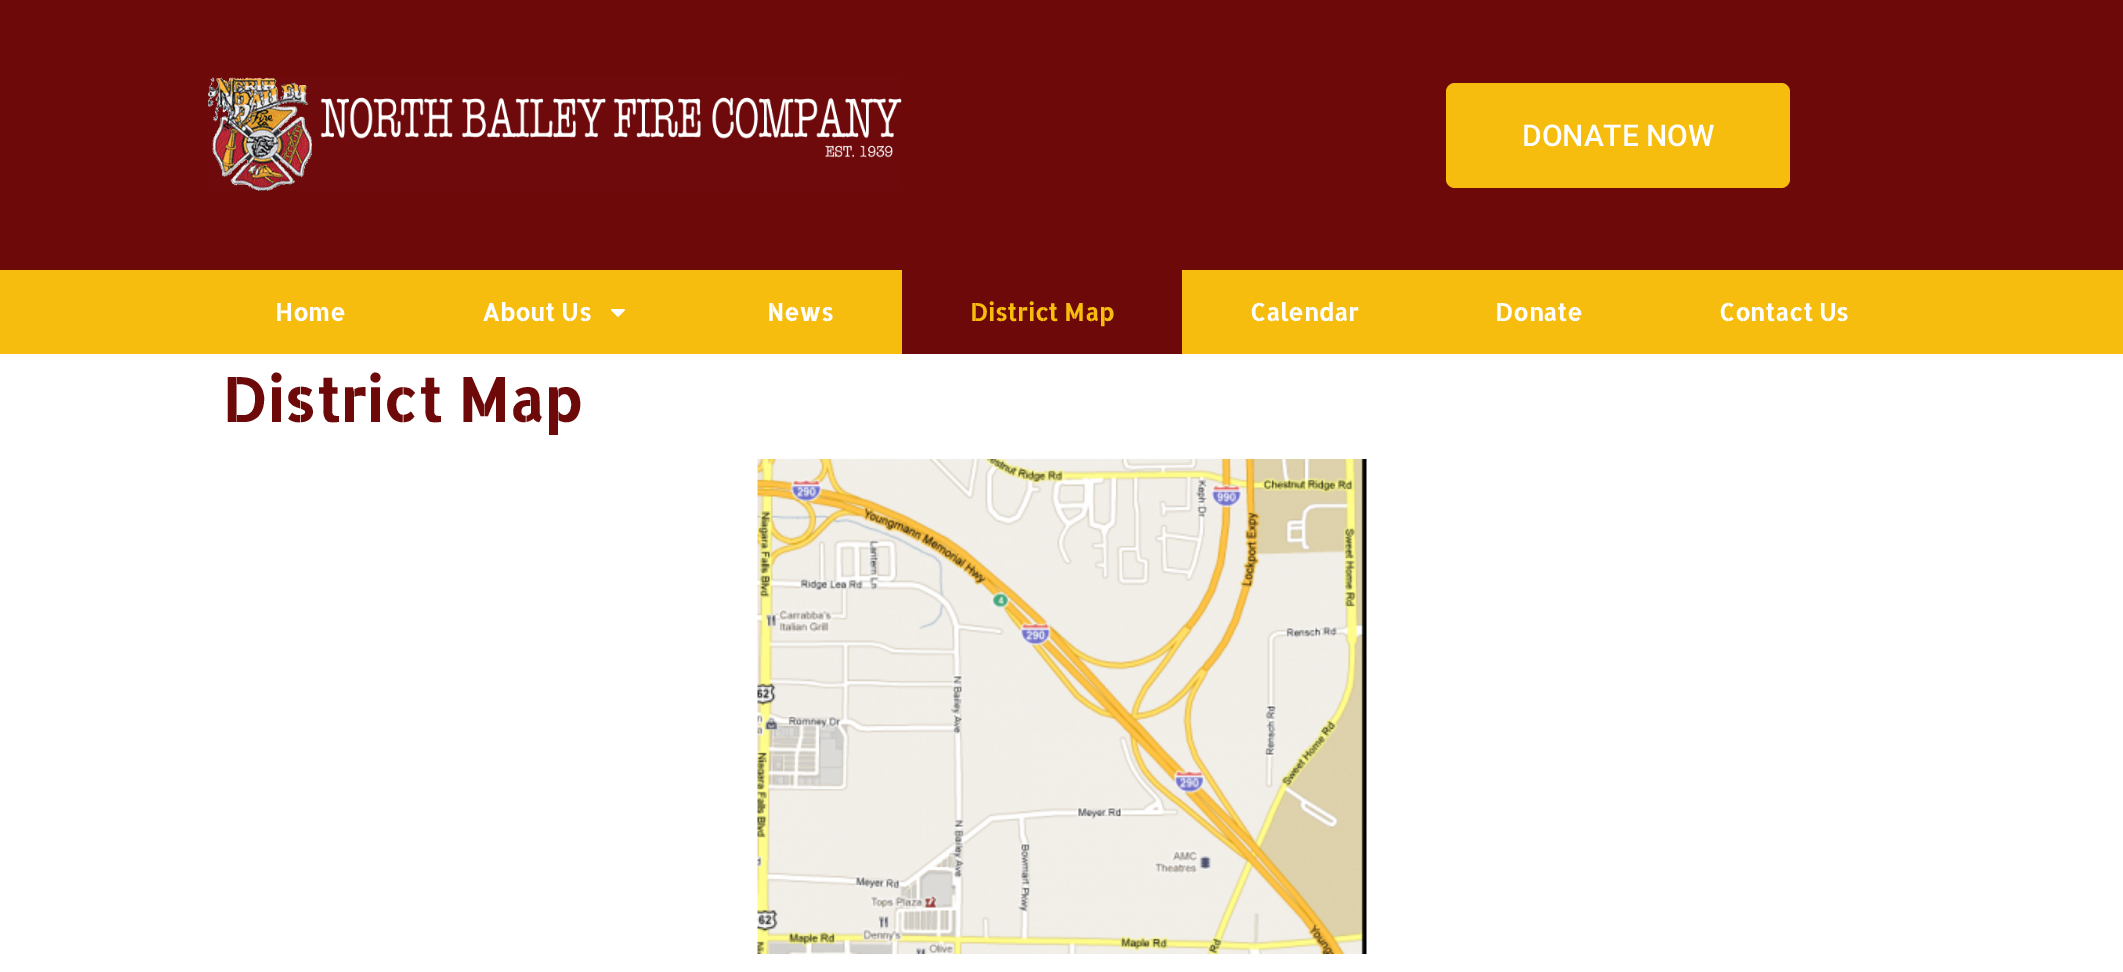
%!PS-Adobe-3.0
%%BoundingBox: 0 0 2123 972
%%LanguageLevel: 3
%%Pages: 1
%%EndComments
%%BeginProlog
/setink { dup -16 bitshift 255 div exch dup -8 bitshift 255 and 255 div exch 255 and 255 div setrgbcolor } def
/usefont { [ exch dup neg 0 0 3 -1 roll 0 0 ] selectfont } def
/rrect { 5 dict begin { /r /h /w /y /x } { exch def } forall
  x r add y moveto x w add y 2 copy h add r arct x w add y h add x 1 index r arct
  x y h add x y r arct x y 2 copy exch w add exch r arct closepath end } def
/drawimage { 5 dict begin { /h /w /y /x /name } { exch def } forall
  gsave x y translate w h scale
  w h 8 [w 0 0 h 0 0] name (r) file false 3 colorimage grestore end } def
%%EndProlog
%%BeginSetup
<< /PageSize [2123 972] >> setpagedevice
%%EndSetup
%%Page: 1 1
0 972 translate 1 -1 scale
4 setmiterlimit
16#FFFFFF setink
0 0 2123 972 rectfill
16#6E0909 setink
0 0 2123 270 rectfill
(img1.raw) 208 77 694 114 drawimage
16#F6BD0E setink
1446 83 344 105 9 rrect fill
/Roboto-Medium 30 usefont
16#FFFFFF setink
1522 146 moveto (DONATE NOW) show
16#F6BD0E setink
0 270 2123 84 rectfill
/AllertaStencil-Bold 24 usefont
16#FFFFFF setink
275 321 moveto (Home) show
482 321 moveto (About Us) show
(img2.raw) 611 309 14 8 drawimage
767 321 moveto (News) show
16#6E0909 setink
902 270 280 84 rectfill
16#F6BD0E setink
970 321 moveto (District Map) show
16#FFFFFF setink
[
    [(Calendar) 1250 321]
    [(Donate) 1495 321]
    [(Contact Us) 1719 321]
] { aload pop moveto show } forall
/AllertaStencil-Bold 60 usefont
16#6E0909 setink
222 422 moveto (District Map) show
(img3.raw) 757 459 610 495 drawimage
showpage
%%EOF
